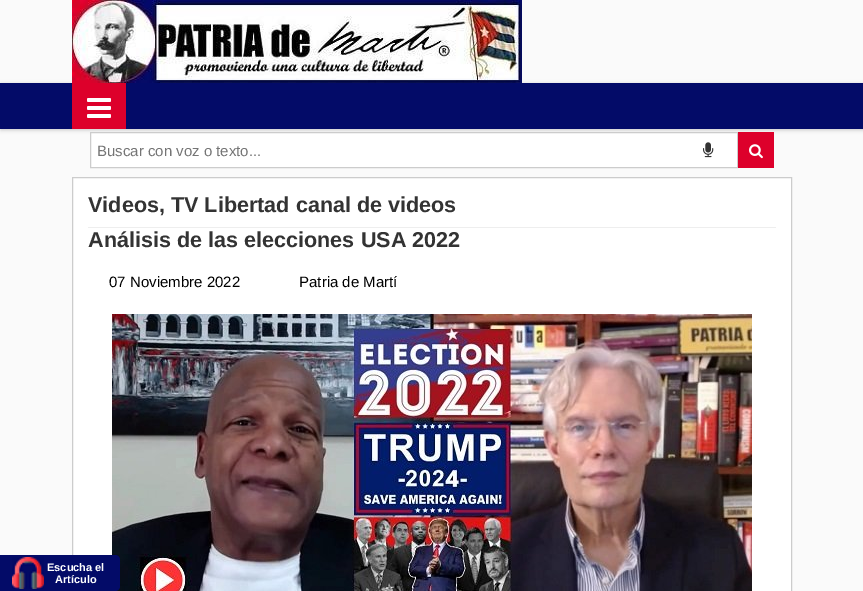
%!PS-Adobe-3.0
%%BoundingBox: 0 0 863 591
%%LanguageLevel: 3
%%Pages: 1
%%EndComments
%%BeginProlog
/setink { dup -16 bitshift 255 div exch dup -8 bitshift 255 and 255 div exch 255 and 255 div setrgbcolor } def
/usefont { [ exch dup neg 0 0 3 -1 roll 0 0 ] selectfont } def
/setalpha { dup .setfillconstantalpha .setstrokeconstantalpha } def
/rrect { 5 dict begin { /r /h /w /y /x } { exch def } forall
  x r add y moveto x w add y 2 copy h add r arct x w add y h add x 1 index r arct
  x y h add x y r arct x y 2 copy exch w add exch r arct closepath end } def
/softshadow { 12 dict begin { /a /b /q /h /w /y /x } { exch def } forall gsave /was 0 def
  9 -2 -9 { dup b mul 4 div /e exch def 1 sub .425 mul 2.718 exch exp 1 add a .99 .min exch div /now exch def
    1 1 now sub 1 was sub div sub setalpha /was now def
    w h .min e 2 mul add 0 gt { x e sub y e sub w e 2 mul add h e 2 mul add
      q e add b .6 mul add w h .min 2 div e add .min 0 .max rrect fill } if } for grestore end } def
/drawimage { 5 dict begin { /h /w /y /x /name } { exch def } forall
  gsave x y translate w h scale
  w h 8 [w 0 0 h 0 0] name (r) file false 3 colorimage grestore end } def
%%EndProlog
%%BeginSetup
<< /PageSize [863 591] /PageUsesTransparency true >> setpagedevice
%%EndSetup
%%Page: 1 1
0 .pushpdf14devicefilter
0 591 translate 1 -1 scale
4 setmiterlimit
16#FAFAFA setink
0 0 863 591 rectfill
16#000000 setink
1 84 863 46 0 2 0.2 softshadow
(img1.raw) 72 0 450 83 drawimage
16#030B68 setink
0 83 863 46 rectfill
16#DD002B setink
72 83 54 46 rectfill
(img2.raw) 87 98 24 20 drawimage
16#FFFFFF setink
90.5 132.5 moveto 737.5 132.5 lineto 737.5 167.5 lineto 90.5 167.5 lineto closepath gsave fill grestore
16#CCCCCC setink
stroke
/LiberationSans-Regular 15 usefont
16#757575 setink
97 156 moveto (Buscar con voz o texto...) show
(img3.raw) 703 142 11 16 drawimage
16#DD002B setink
738 132 36 36 rectfill
(img4.raw) 749 144 14 15 drawimage
16#FFFFFF setink
72.5 177.5 moveto 791.5 177.5 lineto 791.5 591.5 lineto 72.5 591.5 lineto closepath gsave fill grestore
16#CCCCCC setink
stroke
16#EEEEEE setink
88 227 688 1 rectfill
/LiberationSans-Bold 21.6 usefont
16#333333 setink
88 212 moveto (Videos, TV Libertad canal de videos) show
88 247 moveto (Análisis de las elecciones USA 2022) show
/LiberationSans-Regular 15 usefont
16#000000 setink
109 287 moveto (07 Noviembre 2022) show
299 287 moveto (Patria de Martí) show
(img5.raw) 112 314 640 277 drawimage
16#030B68 setink
0 555 moveto 115 555 lineto 118 555 120 557 120 560 curveto 120 586 lineto 120 589 118 591 115 591 curveto 0 591 lineto closepath fill
(img6.raw) 12 557 32 32 drawimage
/LiberationSans-Bold 11 usefont
16#FFFFFF setink
47 571 moveto (Escucha el) show
55 583 moveto (Artículo) show
.poppdf14devicefilter showpage
%%EOF
